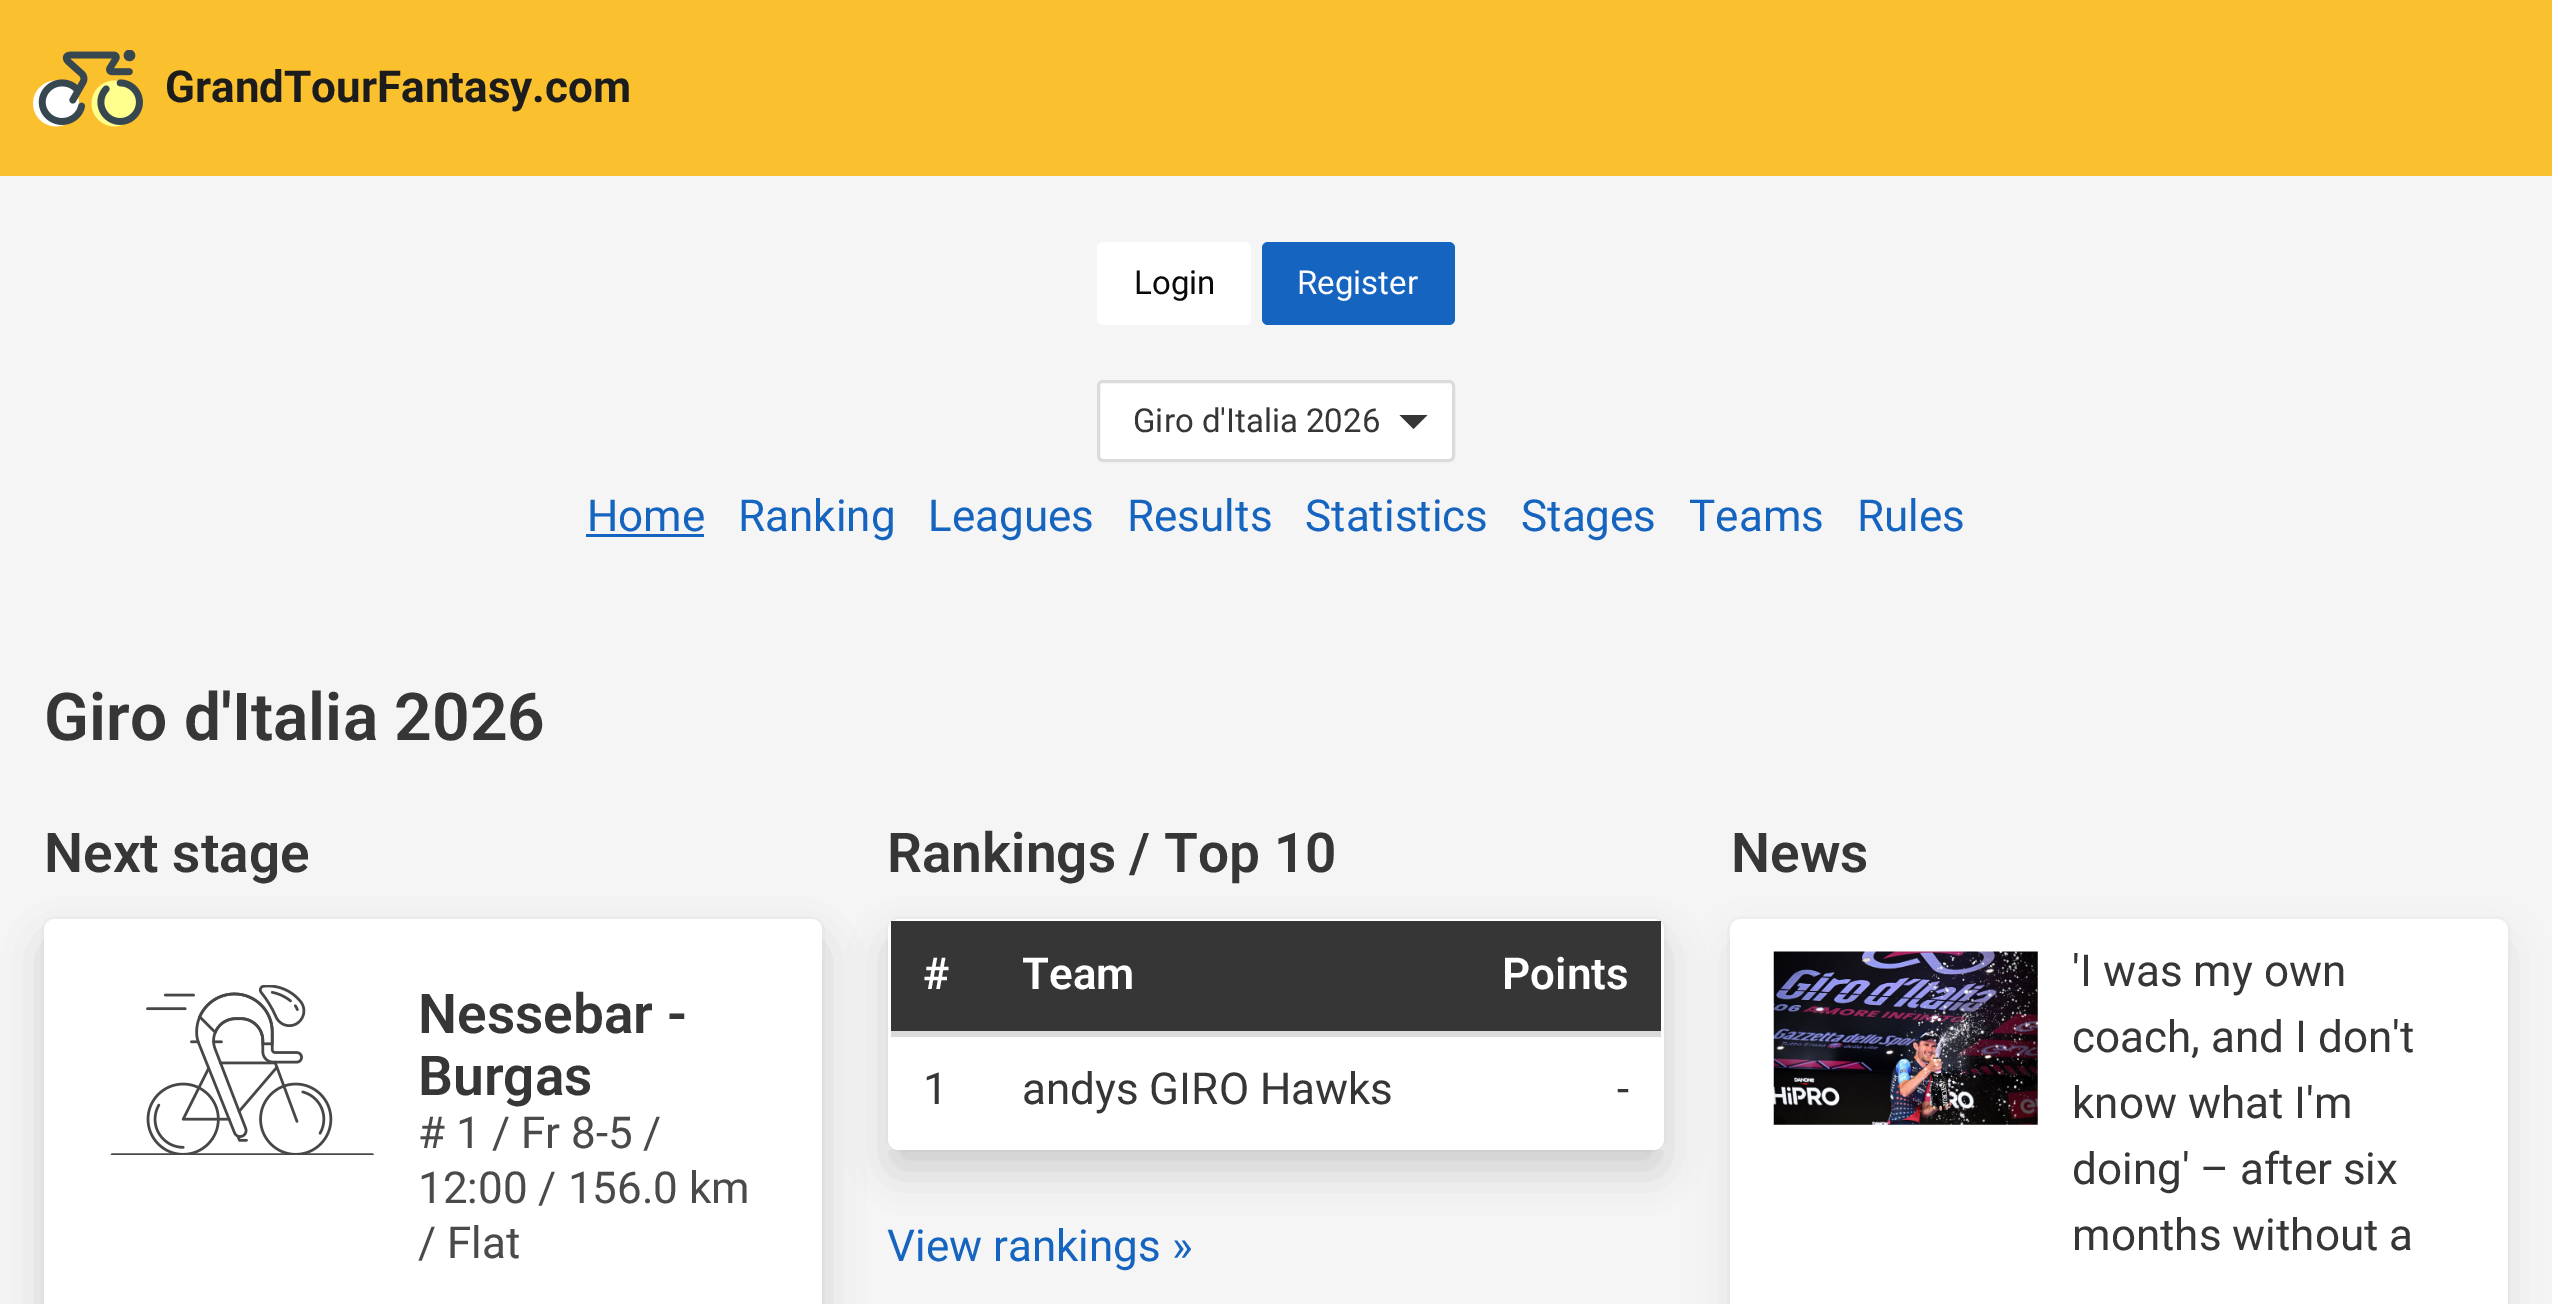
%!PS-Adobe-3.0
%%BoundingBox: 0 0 2552 1304
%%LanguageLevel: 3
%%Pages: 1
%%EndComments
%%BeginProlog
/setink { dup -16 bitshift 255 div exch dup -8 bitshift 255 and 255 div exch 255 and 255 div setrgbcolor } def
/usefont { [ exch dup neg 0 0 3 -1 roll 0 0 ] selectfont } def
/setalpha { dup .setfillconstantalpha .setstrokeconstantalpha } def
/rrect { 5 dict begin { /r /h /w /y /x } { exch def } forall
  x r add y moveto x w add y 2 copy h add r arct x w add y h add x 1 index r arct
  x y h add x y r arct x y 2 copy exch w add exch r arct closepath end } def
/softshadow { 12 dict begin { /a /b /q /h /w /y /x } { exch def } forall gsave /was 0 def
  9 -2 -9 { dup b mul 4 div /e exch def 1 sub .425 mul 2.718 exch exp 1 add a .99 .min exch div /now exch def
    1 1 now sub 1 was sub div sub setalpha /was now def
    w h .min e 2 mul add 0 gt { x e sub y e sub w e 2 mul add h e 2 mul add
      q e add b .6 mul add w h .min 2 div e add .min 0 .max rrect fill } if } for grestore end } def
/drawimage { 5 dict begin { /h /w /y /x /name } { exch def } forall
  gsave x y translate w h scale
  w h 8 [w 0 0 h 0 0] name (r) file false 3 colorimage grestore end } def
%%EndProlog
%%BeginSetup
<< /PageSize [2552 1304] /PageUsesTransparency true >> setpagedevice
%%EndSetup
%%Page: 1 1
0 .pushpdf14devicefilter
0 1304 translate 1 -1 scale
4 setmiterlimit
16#F5F5F5 setink
0 0 2552 1304 rectfill
16#FBC02D setink
0 0 2552 176 rectfill
(img1.raw) 33 50 110 77 drawimage
/Roboto-Bold 44 usefont
16#1C1C1C setink
165 102 moveto (GrandTourFantasy.com) show
16#FFFFFF setink
1097 242 154 83 6 rrect fill
/Roboto-Regular 33 usefont
16#0A0A0A setink
1134 294 moveto (Login) show
16#1565C0 setink
1262 242 193 83 6 rrect fill
16#FFFFFF setink
1297 294 moveto (Register) show
1098.5 381.5 355 79 4.5 rrect gsave fill grestore
16#DBDBDB setink
3 setlinewidth
stroke
16#363636 setink
1133 432 moveto (Giro d'Italia 2026) show
1399.5 415 moveto 1413.5 429 lineto 1427.5 415 lineto closepath fill
/Roboto-Regular 44 usefont
16#1565C0 setink
587 531 moveto (Home) show
586 534 118 3 rectfill
[
    [(Ranking) 738 531]
    [(Leagues) 928 531]
    [(Results) 1127 531]
    [(Statistics) 1305 531]
    [(Stages) 1521 531]
    [(Teams) 1689 531]
    [(Rules) 1857 531]
] { aload pop moveto show } forall
/Roboto-SemiBold 66 usefont
16#363636 setink
44 740 moveto (Giro d'Italia 2026) show
/Roboto-SemiBold 55 usefont
44 872 moveto (Next stage) show
16#F0F0F0 setink
42.5 917.5 781 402 12.5 rrect stroke
16#0A0A0A setink
50 946 767 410 6 22 0.1 softshadow
50 946 767 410 6 22 0.1 softshadow
16#FFFFFF setink
44 919 778 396 11 rrect fill
(img2.raw) 110 985 264 170 drawimage
16#363636 setink
418 1033 moveto (Nessebar -) show
418 1095 moveto (Burgas) show
/Roboto-Regular 44 usefont
16#4A4A4A setink
[
    [(# 1 / Fr 8-5 /) 418 1148]
    [(12:00 / 156.0 km) 418 1203]
    [(/ Flat) 418 1258]
] { aload pop moveto show } forall
/Roboto-SemiBold 55 usefont
16#363636 setink
887 872 moveto (Rankings / Top 10) show
16#F0F0F0 setink
887.5 917.5 778 233 12.5 rrect stroke
16#0A0A0A setink
894 946 764 220 6 22 0.1 softshadow
gsave
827 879 moveto 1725 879 lineto 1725 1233 lineto 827 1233 lineto closepath 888 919 moveto 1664 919 lineto 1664 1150 lineto 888 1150 lineto closepath eoclip newpath
894 946 764 220 0 22 0.1 softshadow
grestore
16#FFFFFF setink
888 919 776 231 11 rrect fill
16#363636 setink
891 921 770 110 rectfill
16#DBDBDB setink
891 1031 770 6 rectfill
/Roboto-SemiBold 44 usefont
16#FFFFFF setink
[
    [(#) 923 989]
    [(Team) 1022 989]
    [(Points) 1502 989]
] { aload pop moveto show } forall
/Roboto-Regular 44 usefont
16#363636 setink
[
    [(1) 923 1104]
    [(andys GIRO Hawks) 1022 1104]
    [(-) 1617 1104]
] { aload pop moveto show } forall
16#1565C0 setink
887 1261 moveto (View rankings ») show
/Roboto-SemiBold 55 usefont
16#363636 setink
1731 872 moveto (News) show
16#F0F0F0 setink
1728.5 917.5 781 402 12.5 rrect stroke
16#0A0A0A setink
1735 946 768 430 6 22 0.1 softshadow
16#FFFFFF setink
1730 919 778 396 11 rrect fill
(img3.raw) 1773 951 265 174 drawimage
/Roboto-Regular 44 usefont
16#363636 setink
[
    [('I was my own) 2072 986]
    [(coach, and I don't) 2072 1052]
    [(know what I'm) 2072 1118]
    [(doing' – after six) 2072 1184]
    [(months without a) 2072 1250]
] { aload pop moveto show } forall
.poppdf14devicefilter showpage
%%EOF
